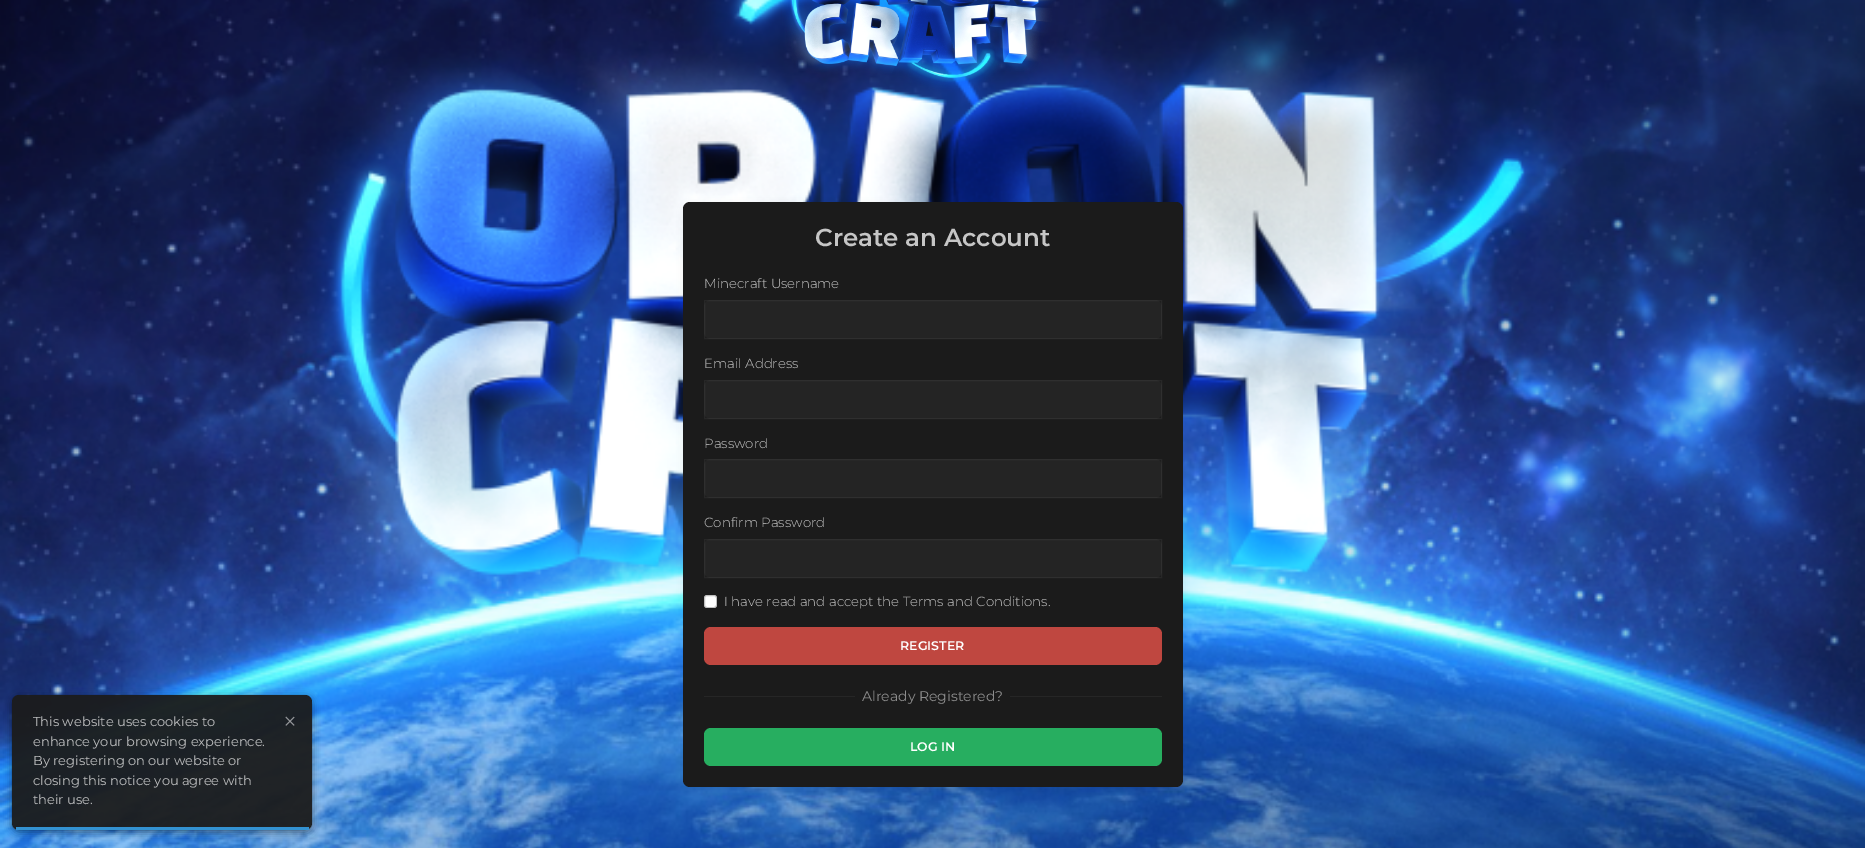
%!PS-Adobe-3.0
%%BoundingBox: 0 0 1865 848
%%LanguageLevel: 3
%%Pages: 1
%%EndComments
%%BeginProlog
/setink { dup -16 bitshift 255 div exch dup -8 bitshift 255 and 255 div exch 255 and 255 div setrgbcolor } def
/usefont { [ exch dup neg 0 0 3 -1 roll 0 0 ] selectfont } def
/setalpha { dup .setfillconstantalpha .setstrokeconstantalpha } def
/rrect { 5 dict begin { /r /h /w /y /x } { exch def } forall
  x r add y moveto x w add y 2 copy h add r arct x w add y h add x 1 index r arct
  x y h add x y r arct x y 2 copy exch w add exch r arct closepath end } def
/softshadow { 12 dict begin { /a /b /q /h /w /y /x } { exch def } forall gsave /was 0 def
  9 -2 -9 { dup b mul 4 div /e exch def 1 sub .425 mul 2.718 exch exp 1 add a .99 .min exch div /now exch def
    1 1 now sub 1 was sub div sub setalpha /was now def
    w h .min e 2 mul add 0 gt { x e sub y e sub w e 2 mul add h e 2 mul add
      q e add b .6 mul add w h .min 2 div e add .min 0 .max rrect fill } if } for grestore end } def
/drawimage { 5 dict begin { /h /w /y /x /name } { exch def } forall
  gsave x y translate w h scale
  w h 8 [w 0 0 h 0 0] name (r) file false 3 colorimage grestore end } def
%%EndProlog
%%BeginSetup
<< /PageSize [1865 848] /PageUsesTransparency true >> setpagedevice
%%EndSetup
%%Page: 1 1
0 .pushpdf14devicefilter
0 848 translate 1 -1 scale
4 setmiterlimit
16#FFFFFF setink
0 0 1865 848 rectfill
(img1.raw) 0 0 1865 848 drawimage
gsave
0 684 moveto 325 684 lineto 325 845 lineto 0 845 lineto closepath 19 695 moveto 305 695 lineto 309 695 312 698 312 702 curveto 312 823 lineto 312 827 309 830 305 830 curveto 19 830 lineto 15 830 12 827 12 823 curveto 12 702 lineto 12 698 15 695 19 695 curveto closepath eoclip newpath
16#000000 setink
12 697 300 135 7 4 0.47 softshadow
grestore
0.95 setalpha
16#1B1B1B setink
12 695 300 135 7 rrect fill
16#3498DB setink
16 827 293 3 rectfill
/Montserrat-Regular 13 usefont
1 setalpha
16#BEBFC0 setink
[
    [(This website uses cookies to) 33 726]
    [(enhance your browsing experience.) 33 746]
    [(By registering on our website or) 33 765]
    [(closing this notice you agree with) 33 785]
    [(their use.) 33 804]
] { aload pop moveto show } forall
/Montserrat-Light 28 usefont
16#95979A setink
282 731 moveto (×) show
(img2.raw) 782 0 274 90 drawimage
16#000000 setink
683 204 500 585 7 4 0.05 softshadow
16#1B1B1B setink
683 202 500 585 7 rrect fill
/Montserrat-SemiBold 24.5 usefont
16#C6C6C6 setink
815 246 moveto (Create an Account) show
/Montserrat-Light 13.3 usefont
704 288 moveto (Minecraft Username) show
16#242424 setink
704 300 458 39 7 rrect fill
0.05 setalpha
16#FFFFFF setink
704.5 300.5 457 38 rectstroke
1 setalpha
16#C6C6C6 setink
704 368 moveto (Email Address) show
16#242424 setink
704 380 458 39 7 rrect fill
0.05 setalpha
16#FFFFFF setink
704.5 380.5 457 38 rectstroke
1 setalpha
16#C6C6C6 setink
704 448 moveto (Password) show
16#242424 setink
704 459 458 39 7 rrect fill
0.05 setalpha
16#FFFFFF setink
704.5 459.5 457 38 rectstroke
1 setalpha
16#C6C6C6 setink
704 527 moveto (Confirm Password) show
16#242424 setink
704 539 458 39 7 rrect fill
0.05 setalpha
16#FFFFFF setink
704.5 539.5 457 38 rectstroke
1 setalpha
704 595 13 13 3 rrect fill
0.25 setalpha
16#000000 setink
704.5 595.5 12 12 2.5 rrect stroke
1 setalpha
16#C6C6C6 setink
724 606 moveto (I have read and accept the Terms and Conditions.) show
16#BF4740 setink
704 627 458 38 7 rrect fill
/Montserrat-SemiBold 12.5 usefont
16#FFFFFF setink
900 650 moveto (REGISTER) show
16#262626 setink
704 696 151 1 rectfill
/Montserrat-Regular 14 usefont
16#8D8D8D setink
862 701 moveto (Already Registered?) show
16#262626 setink
1010 696 152 1 rectfill
16#27AE60 setink
704 728 458 38 7 rrect fill
/Montserrat-SemiBold 12.5 usefont
16#FFFFFF setink
910 751 moveto (LOG IN) show
.poppdf14devicefilter showpage
%%EOF
